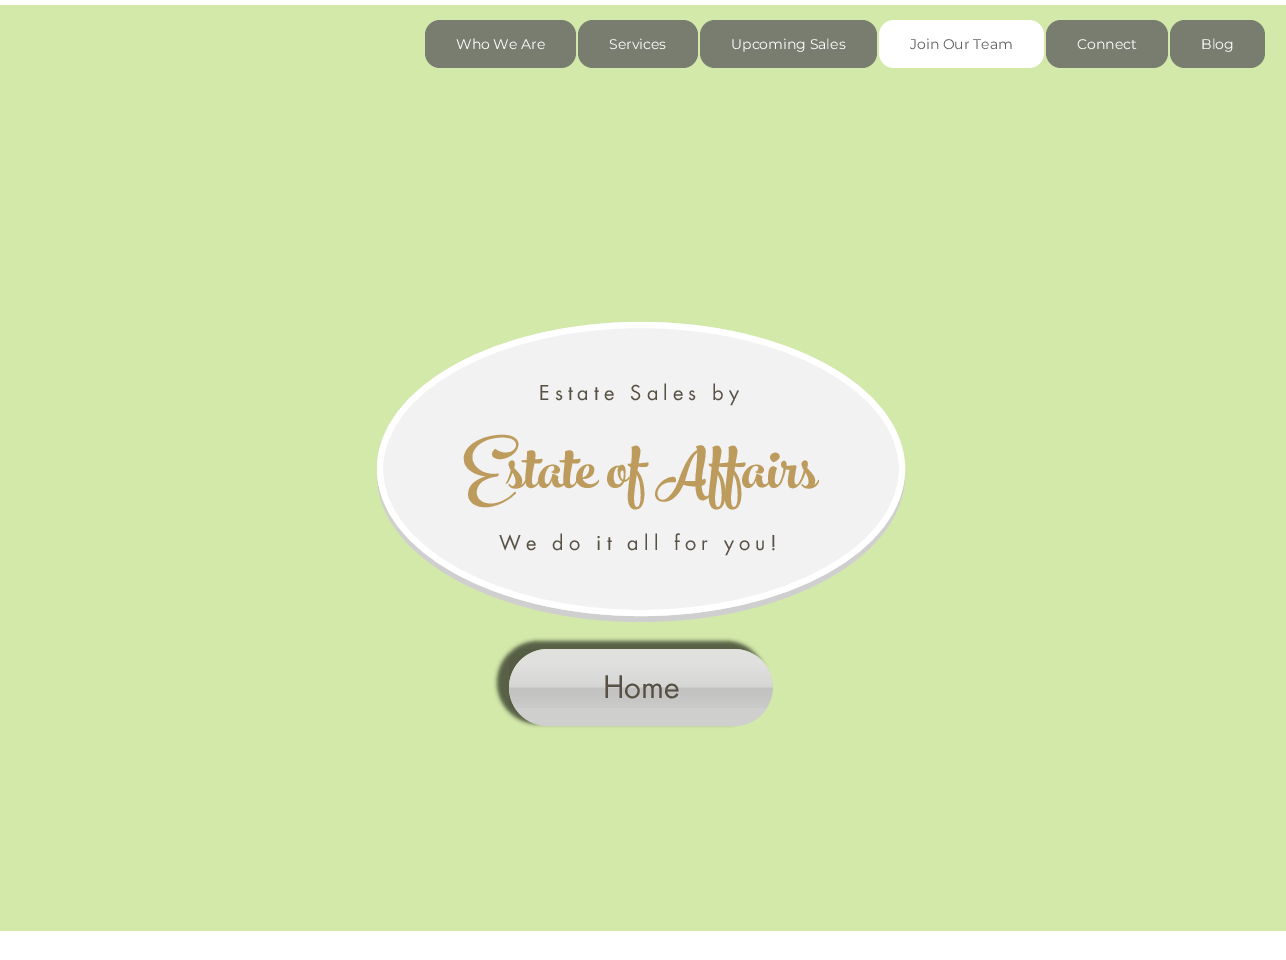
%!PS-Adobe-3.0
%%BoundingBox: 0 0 1286 960
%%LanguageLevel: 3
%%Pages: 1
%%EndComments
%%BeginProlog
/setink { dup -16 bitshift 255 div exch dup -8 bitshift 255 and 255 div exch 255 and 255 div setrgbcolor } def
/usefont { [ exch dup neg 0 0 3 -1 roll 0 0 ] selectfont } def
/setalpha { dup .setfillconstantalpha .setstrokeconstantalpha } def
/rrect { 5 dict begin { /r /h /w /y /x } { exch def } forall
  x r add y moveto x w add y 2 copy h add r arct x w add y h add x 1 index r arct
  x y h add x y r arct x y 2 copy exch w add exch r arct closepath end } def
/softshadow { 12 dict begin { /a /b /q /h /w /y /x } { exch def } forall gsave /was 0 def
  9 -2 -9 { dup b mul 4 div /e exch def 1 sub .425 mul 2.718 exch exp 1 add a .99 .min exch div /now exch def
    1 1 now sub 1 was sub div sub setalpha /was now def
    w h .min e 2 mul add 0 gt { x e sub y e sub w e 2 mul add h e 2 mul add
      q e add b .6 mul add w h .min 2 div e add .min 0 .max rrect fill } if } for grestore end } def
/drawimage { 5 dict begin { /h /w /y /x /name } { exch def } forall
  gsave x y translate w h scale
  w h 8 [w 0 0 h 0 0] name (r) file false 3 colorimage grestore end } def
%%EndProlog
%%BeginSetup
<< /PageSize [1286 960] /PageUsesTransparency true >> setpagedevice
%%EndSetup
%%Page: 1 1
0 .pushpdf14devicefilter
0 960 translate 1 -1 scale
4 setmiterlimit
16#FFFFFF setink
0 0 1286 960 rectfill
16#D3E9AA setink
0 5 1286 926 rectfill
16#787D70 setink
425 20 151 48 15 rrect fill
/Montserrat-Regular 14 usefont
16#FFFFFF setink
456 49 moveto (Who We Are) show
16#787D70 setink
578 20 120 48 15 rrect fill
16#FFFFFF setink
609 49 moveto (Services) show
16#787D70 setink
700 20 177 48 15 rrect fill
16#FFFFFF setink
731 49 moveto (Upcoming Sales) show
879 20 165 48 15 rrect fill
16#606060 setink
910 49 moveto (Join Our Team) show
16#787D70 setink
1046 20 122 48 15 rrect fill
16#FFFFFF setink
1077 49 moveto (Connect) show
16#787D70 setink
1170 20 95 48 15 rrect fill
16#FFFFFF setink
1201 49 moveto (Blog) show
16#CFCFCF setink
377 472 moveto 377 475 lineto 377 556 495 622 641 622 curveto 787 622 905 556 905 475 curveto 905 472 lineto 902 552 785 616 641 616 curveto 497 616 380 552 377 472 curveto closepath fill
0.98 setalpha
16#F2F2F2 setink
641 322 moveto 787 322 905 388 905 469 curveto 905 550 787 616 641 616 curveto 495 616 377 550 377 469 curveto 377 388 495 322 641 322 curveto closepath fill
1 setalpha
16#FFFFFF setink
6 setlinewidth
641 325 moveto 785 325 902 389.5 902 469 curveto 902 548.5 785 613 641 613 curveto 497 613 380 548.5 380 469 curveto 380 389.5 497 325 641 325 curveto closepath stroke
/futura-Regular 20 usefont
16#575044 setink
539 400 moveto 5 0 (Estate Sales by) ashow
/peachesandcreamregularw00-Regular 89 usefont
16#BC9B5D setink
464 488 moveto (Estate of Affairs) show
/futura-Regular 20 usefont
16#575044 setink
499 550 moveto 5 0 (We do it all for you!) ashow
gsave
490 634 moveto 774 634 lineto 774 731 lineto 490 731 lineto closepath 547.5 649 moveto 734.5 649 lineto 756 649 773 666 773 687.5 curveto 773 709 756 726 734.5 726 curveto 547.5 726 lineto 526 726 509 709 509 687.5 curveto 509 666 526 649 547.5 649 curveto closepath eoclip newpath
16#000000 setink
497 641 270 83 41.5 2 0.6 softshadow
grestore
0.98 setalpha
16#CFCFCF setink
509 649 264 77 38.5 rrect fill
1 setalpha
(img1.raw) 509 649 264 59 drawimage
/futura-Regular 30 usefont
16#575044 setink
603 698 moveto (Home) show
.poppdf14devicefilter showpage
%%EOF
